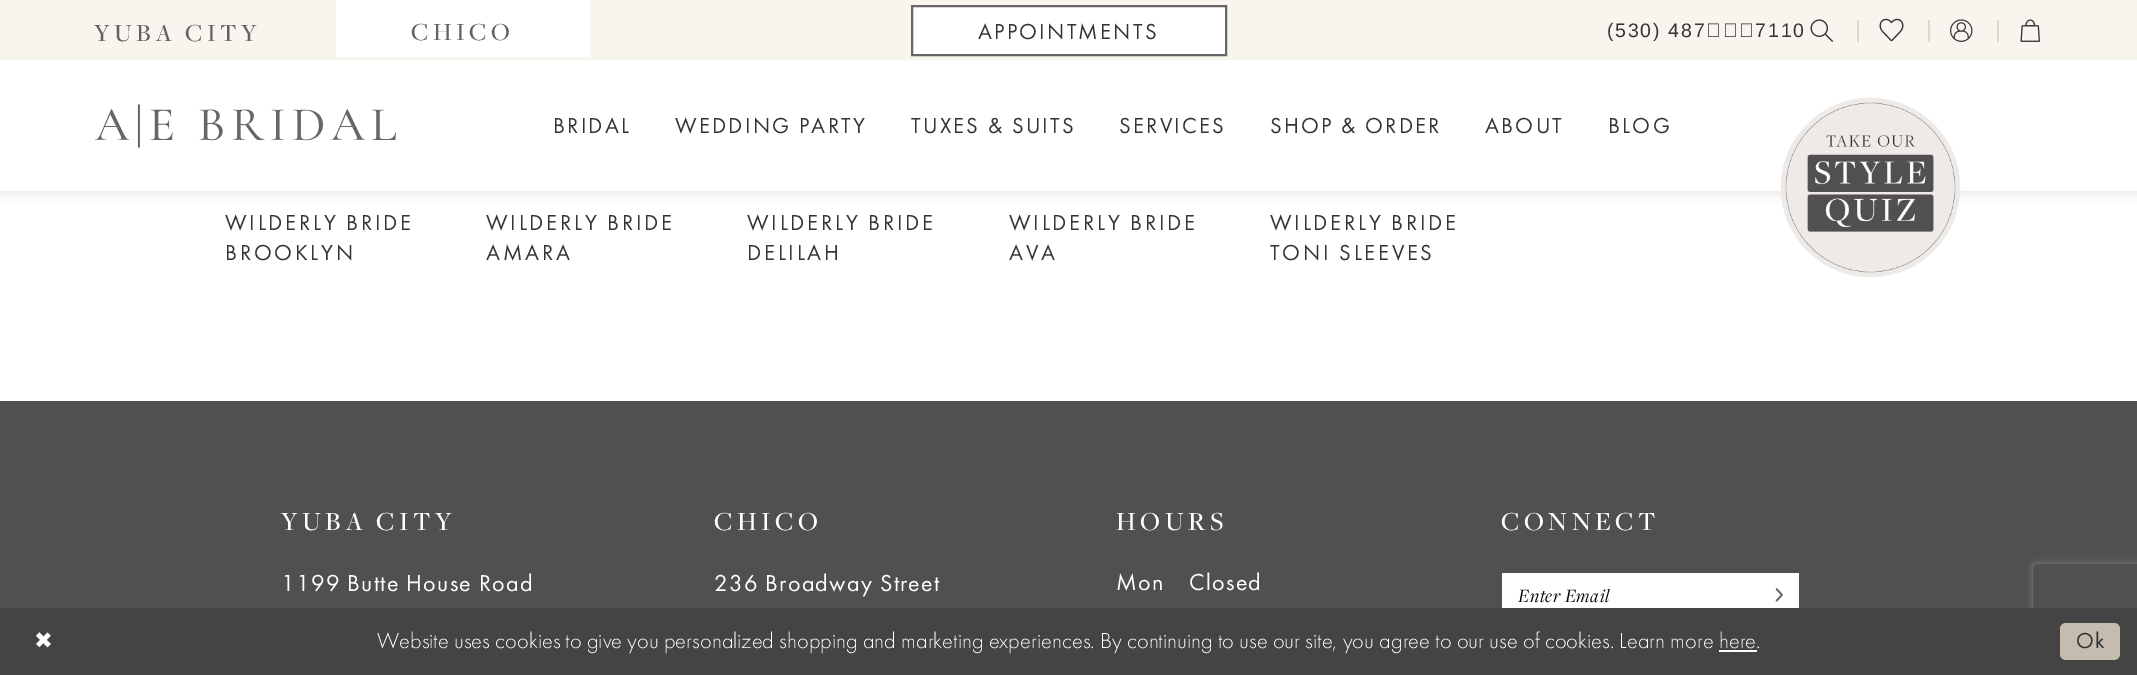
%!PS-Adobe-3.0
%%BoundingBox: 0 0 2137 675
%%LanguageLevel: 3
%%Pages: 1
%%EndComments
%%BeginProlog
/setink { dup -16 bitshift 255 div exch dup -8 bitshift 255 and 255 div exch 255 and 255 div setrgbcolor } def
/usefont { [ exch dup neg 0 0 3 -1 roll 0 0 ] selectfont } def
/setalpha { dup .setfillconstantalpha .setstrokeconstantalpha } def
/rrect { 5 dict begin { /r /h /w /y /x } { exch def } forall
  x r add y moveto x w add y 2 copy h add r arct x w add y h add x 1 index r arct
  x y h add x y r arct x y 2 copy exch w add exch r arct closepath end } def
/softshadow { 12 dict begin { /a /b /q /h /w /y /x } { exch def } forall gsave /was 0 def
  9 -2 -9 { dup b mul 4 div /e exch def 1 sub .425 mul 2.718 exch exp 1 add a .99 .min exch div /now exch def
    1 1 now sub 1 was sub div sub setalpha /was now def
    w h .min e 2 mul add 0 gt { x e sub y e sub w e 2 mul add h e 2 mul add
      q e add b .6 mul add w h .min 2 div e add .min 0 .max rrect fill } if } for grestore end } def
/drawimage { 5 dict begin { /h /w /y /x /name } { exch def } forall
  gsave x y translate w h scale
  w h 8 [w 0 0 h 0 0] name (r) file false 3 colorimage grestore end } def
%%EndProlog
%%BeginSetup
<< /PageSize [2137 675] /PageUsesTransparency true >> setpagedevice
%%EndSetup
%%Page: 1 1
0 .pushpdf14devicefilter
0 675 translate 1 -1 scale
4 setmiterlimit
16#FFFFFF setink
0 0 2137 675 rectfill
16#1E1E1E setink
-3 -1 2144 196 0 4.5 0.1 softshadow
16#FFFFFF setink
0 60 2137 131 rectfill
16#F8F4EE setink
0 0 2137 60 rectfill
/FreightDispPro-Medium 25.5 usefont
16#616161 setink
94 41 moveto 4.5 0 (YUBA CITY) ashow
16#FFFFFF setink
336 0 254 57 rectfill
16#616161 setink
411 40 moveto 4.5 0 (CHICO) ashow
16#FFFFFF setink
912 6 moveto 1226 6 lineto 1226 55 lineto 912 55 lineto closepath gsave fill grestore
16#666666 setink
2 setlinewidth
stroke
/FuturaPT-Regular 22.5 usefont
16#343434 setink
978 39 moveto 2.25 0 (APPOINTMENTS) ashow
/LiberationSans-Regular 19.5 usefont
1607 37 moveto 1.75 0 (\(530\) 487‑7110) ashow
(img1.raw) 1810 19 23 23 drawimage
16#E3D6C8 setink
1857 20 2 22 rectfill
(img2.raw) 1879 18 25 24 drawimage
1928 20 2 22 rectfill
(img3.raw) 1950 19 23 23 drawimage
1997 20 2 22 rectfill
(img4.raw) 2020 19 20 23 drawimage
(img5.raw) 1780 97 181 181 drawimage
(img6.raw) 95 104 301 44 drawimage
/FuturaPT-Regular 22.5 usefont
16#343434 setink
553 133 moveto 2.25 0 (BRIDAL) ashow
675 133 moveto 2.25 0 (WEDDING PARTY) ashow
911 133 moveto 2.25 0 (TUXES & SUITS) ashow
1119 133 moveto 2.25 0 (SERVICES) ashow
1270 133 moveto 2.25 0 (SHOP & ORDER) ashow
1485 133 moveto 2.25 0 (ABOUT) ashow
1608 133 moveto 2.25 0 (BLOG) ashow
225 230 moveto 2.75 0 (WILDERLY BRIDE) ashow
225 260 moveto 2.75 0 (BROOKLYN) ashow
486 230 moveto 2.75 0 (WILDERLY BRIDE) ashow
486 260 moveto 2.75 0 (AMARA) ashow
747 230 moveto 2.75 0 (WILDERLY BRIDE) ashow
747 260 moveto 2.75 0 (DELILAH) ashow
1009 230 moveto 2.75 0 (WILDERLY BRIDE) ashow
1009 260 moveto 2.75 0 (AVA) ashow
1270 230 moveto 2.75 0 (WILDERLY BRIDE) ashow
1270 260 moveto 2.75 0 (TONI SLEEVES) ashow
16#514F50 setink
0 401 2137 207 rectfill
/FreightDispPro-Medium 27 usefont
16#FFFFFF setink
281 530 moveto 4.5 0 (YUBA CITY) ashow
/FuturaPT-Regular 24 usefont
281 591 moveto 1.25 0 (1199 Butte House Road) ashow
/FreightDispPro-Medium 27 usefont
714 530 moveto 4.5 0 (CHICO) ashow
/FuturaPT-Regular 24 usefont
714 591 moveto 1.25 0 (236 Broadway Street) ashow
/FreightDispPro-Medium 27 usefont
1116 530 moveto 4.5 0 (HOURS) ashow
/FuturaPT-Regular 24 usefont
1116 590 moveto 1.25 0 (Mon) ashow
1189 590 moveto 1.25 0 (Closed) ashow
/FreightDispPro-Medium 27 usefont
1501 530 moveto 4.5 0 (CONNECT) ashow
1502 573 297 35 rectfill
/FreightDispPro-Italic 19.5 usefont
16#000000 setink
1518 602 moveto 0.6 0 (Enter Email) ashow
(img7.raw) 1775 588 8 14 drawimage
gsave
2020 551 moveto 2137 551 lineto 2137 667 lineto 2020 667 lineto closepath 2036 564 moveto 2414 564 lineto 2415.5 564 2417 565.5 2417 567 curveto 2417 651 lineto 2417 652.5 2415.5 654 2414 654 curveto 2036 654 lineto 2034.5 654 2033 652.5 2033 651 curveto 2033 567 lineto 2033 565.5 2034.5 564 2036 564 curveto closepath eoclip newpath
16#808080 setink
2033 564 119 90 3 4 1 softshadow
grestore
16#444444 setink
0 608 2137 67 rectfill
/DejaVuSans-Regular 22.5 usefont
16#FFFFFF setink
34 648 moveto 1 0 (✖) ashow
/FuturaPT-Light 22.5 usefont
377 648 moveto (Website uses cookies to give you personalized shopping and marketing experiences. By continuing to use our site, you agree to our use of cookies. Learn more here.) show
1719 650 38 2 rectfill
16#C5BBAF setink
2060 623 60 37 6 rrect fill
/FuturaPT-Regular 22.5 usefont
16#343434 setink
2076 648 moveto 1 0 (Ok) ashow
.poppdf14devicefilter showpage
%%EOF
